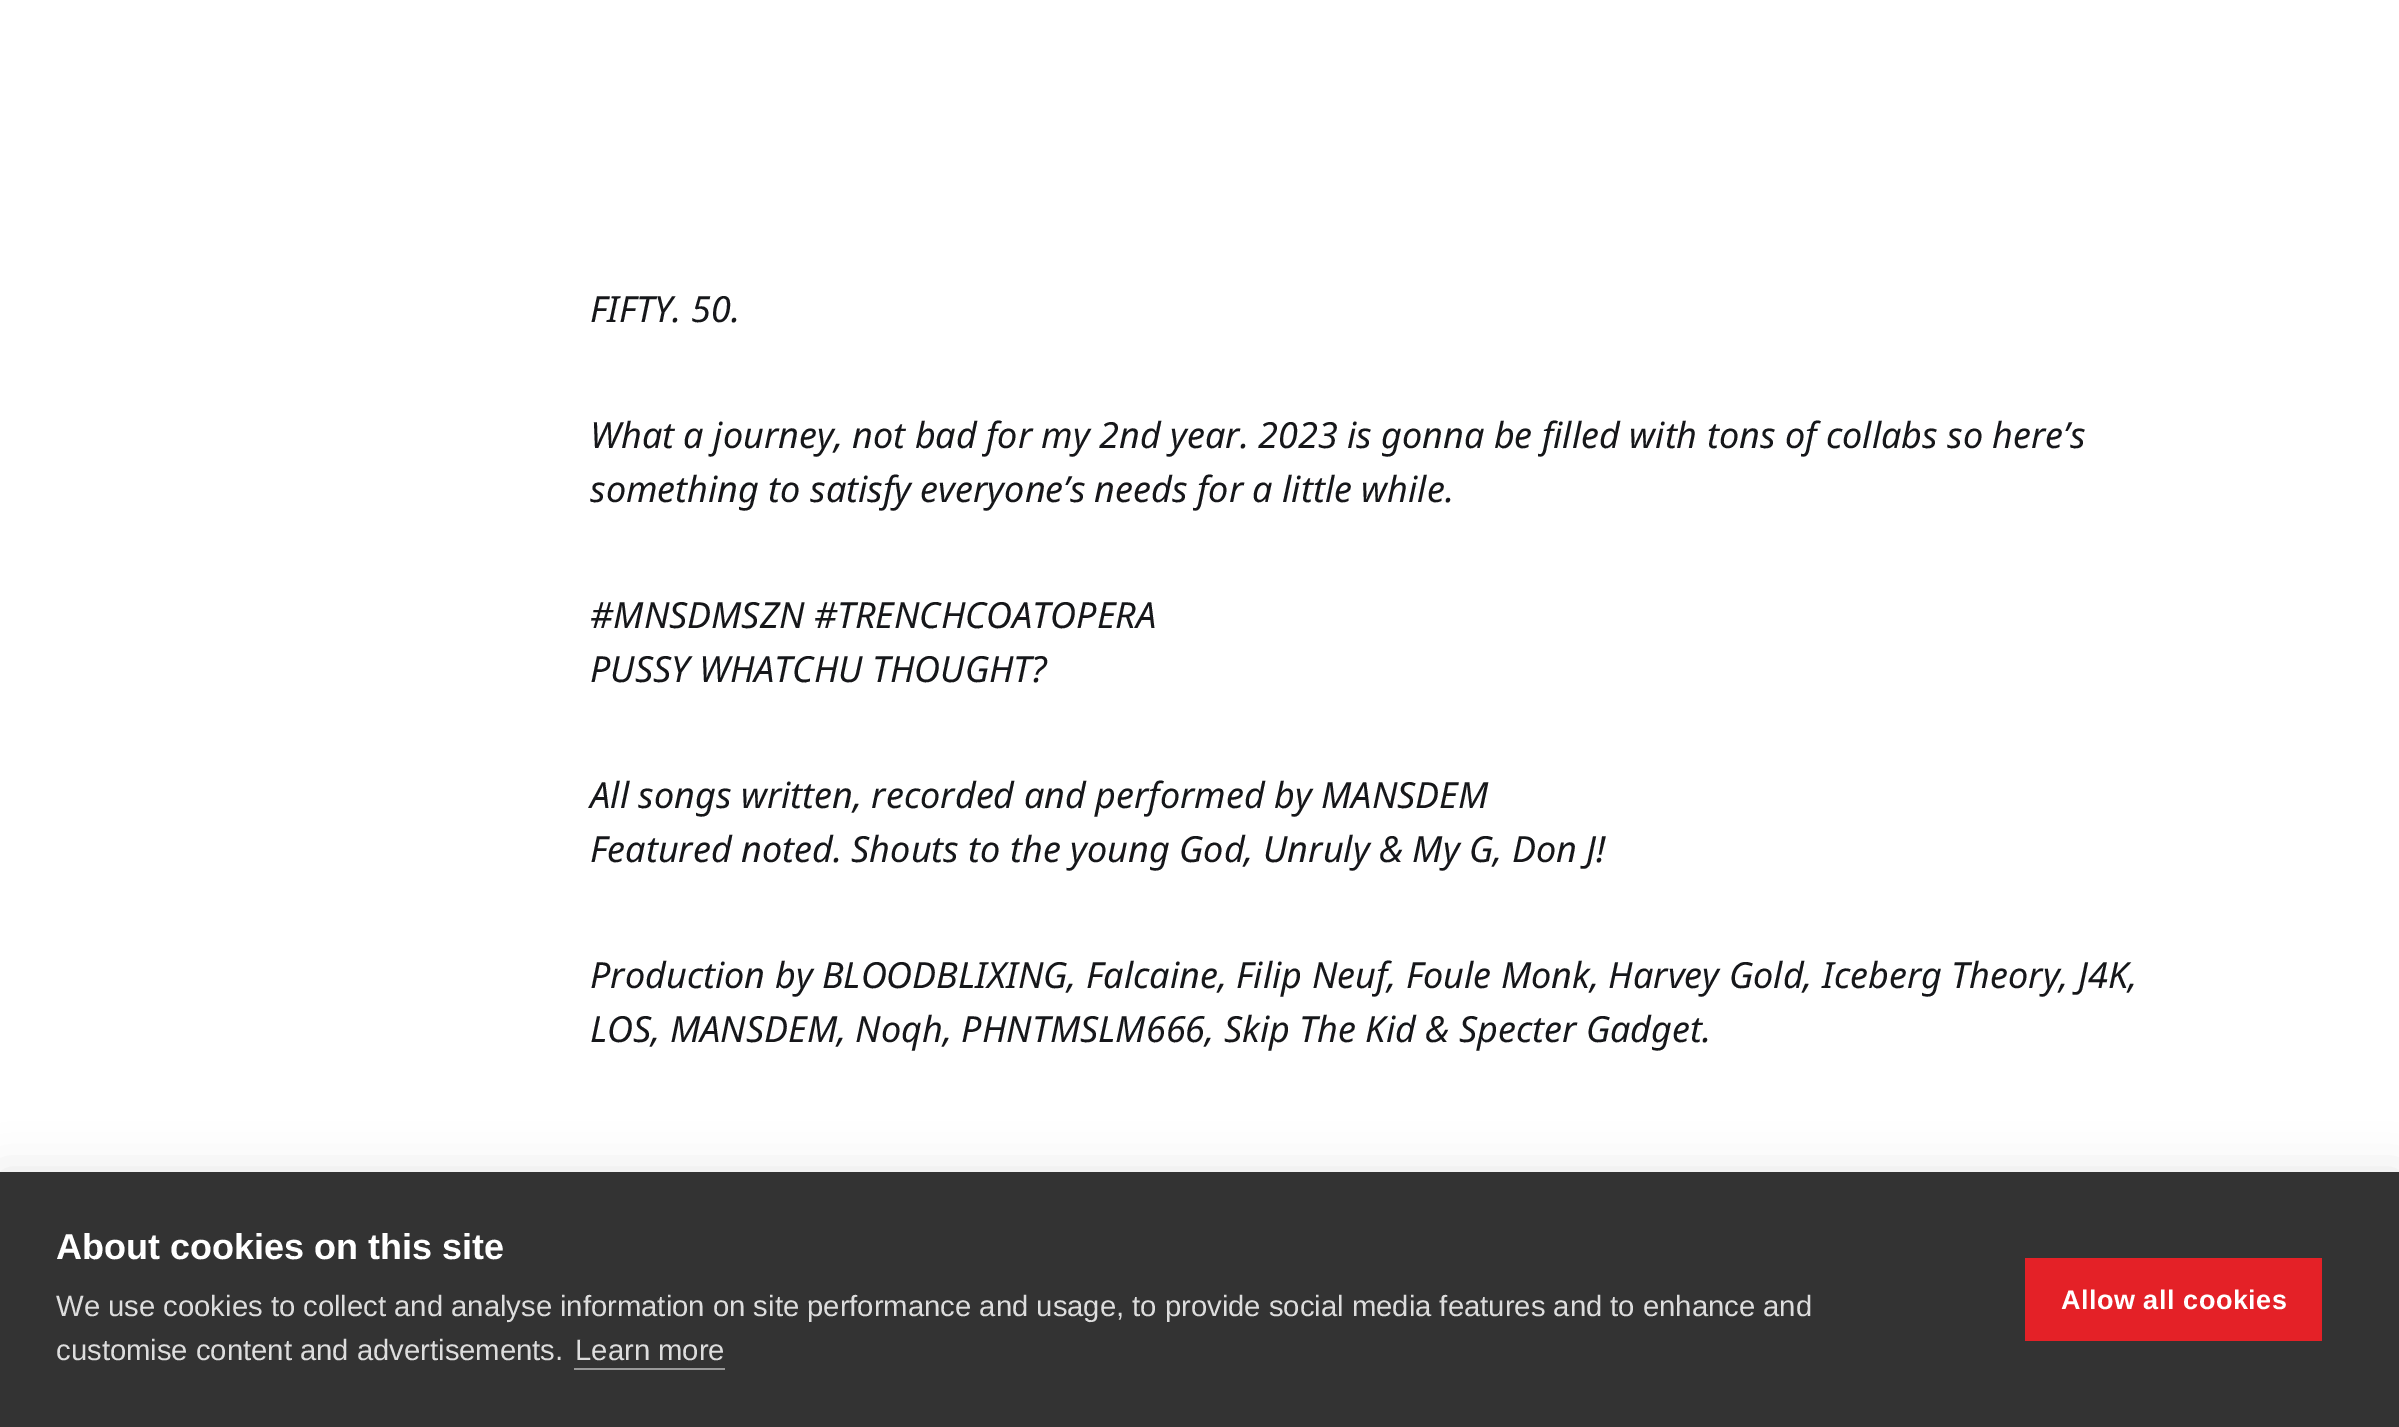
%!PS-Adobe-3.0
%%BoundingBox: 0 0 2399 1427
%%LanguageLevel: 3
%%Pages: 1
%%EndComments
%%BeginProlog
/setink { dup -16 bitshift 255 div exch dup -8 bitshift 255 and 255 div exch 255 and 255 div setrgbcolor } def
/usefont { [ exch dup neg 0 0 3 -1 roll 0 0 ] selectfont } def
/setalpha { dup .setfillconstantalpha .setstrokeconstantalpha } def
/rrect { 5 dict begin { /r /h /w /y /x } { exch def } forall
  x r add y moveto x w add y 2 copy h add r arct x w add y h add x 1 index r arct
  x y h add x y r arct x y 2 copy exch w add exch r arct closepath end } def
/softshadow { 12 dict begin { /a /b /q /h /w /y /x } { exch def } forall gsave /was 0 def
  9 -2 -9 { dup b mul 4 div /e exch def 1 sub .425 mul 2.718 exch exp 1 add a .99 .min exch div /now exch def
    1 1 now sub 1 was sub div sub setalpha /was now def
    w h .min e 2 mul add 0 gt { x e sub y e sub w e 2 mul add h e 2 mul add
      q e add b .6 mul add w h .min 2 div e add .min 0 .max rrect fill } if } for grestore end } def
%%EndProlog
%%BeginSetup
<< /PageSize [2399 1427] /PageUsesTransparency true >> setpagedevice
%%EndSetup
%%Page: 1 1
0 .pushpdf14devicefilter
0 1427 translate 1 -1 scale
4 setmiterlimit
16#FFFFFF setink
0 0 2399 1427 rectfill
/NotoSans-Italic 36 usefont
16#16171A setink
[
    [(FIFTY. 50.) 590 322]
    [(What a journey, not bad for my 2nd year. 2023 is gonna be filled with tons of collabs so here’s) 590 448]
    [(something to satisfy everyone’s needs for a little while.) 590 502]
    [(#MNSDMSZN #TRENCHCOATOPERA) 590 628]
    [(PUSSY WHATCHU THOUGHT?) 590 682]
    [(All songs written, recorded and performed by MANSDEM) 590 808]
    [(Featured noted. Shouts to the young God, Unruly & My G, Don J!) 590 862]
    [(Production by BLOODBLIXING, Falcaine, Filip Neuf, Foule Monk, Harvey Gold, Iceberg Theory, J4K,) 590 988]
    [(LOS, MANSDEM, Noqh, PHNTMSLM666, Skip The Kid & Specter Gadget.) 590 1042]
] { aload pop moveto show } forall
16#000000 setink
0 1172 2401 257 0 22.5 0.1 softshadow
16#333333 setink
0 1172 2399 255 rectfill
/LiberationSans-Bold 36 usefont
16#FFFFFF setink
56 1259 moveto (About cookies on this site) show
/LiberationSans-Regular 29.25 usefont
16#DDDDDD setink
[
    [(We use cookies to collect and analyse information on site performance and usage, to provide social media features and to enhance and) 56 1316]
    [(customise content and advertisements.) 56 1360]
    [(Learn more) 575 1360]
] { aload pop moveto show } forall
16#999999 setink
574 1368 151 2 rectfill
16#E42127 setink
2025 1258 297 83 rectfill
/LiberationSans-Bold 27 usefont
16#FFFFFF setink
2061 1309 moveto 0.5 0 (Allow all cookies) ashow
.poppdf14devicefilter showpage
%%EOF
